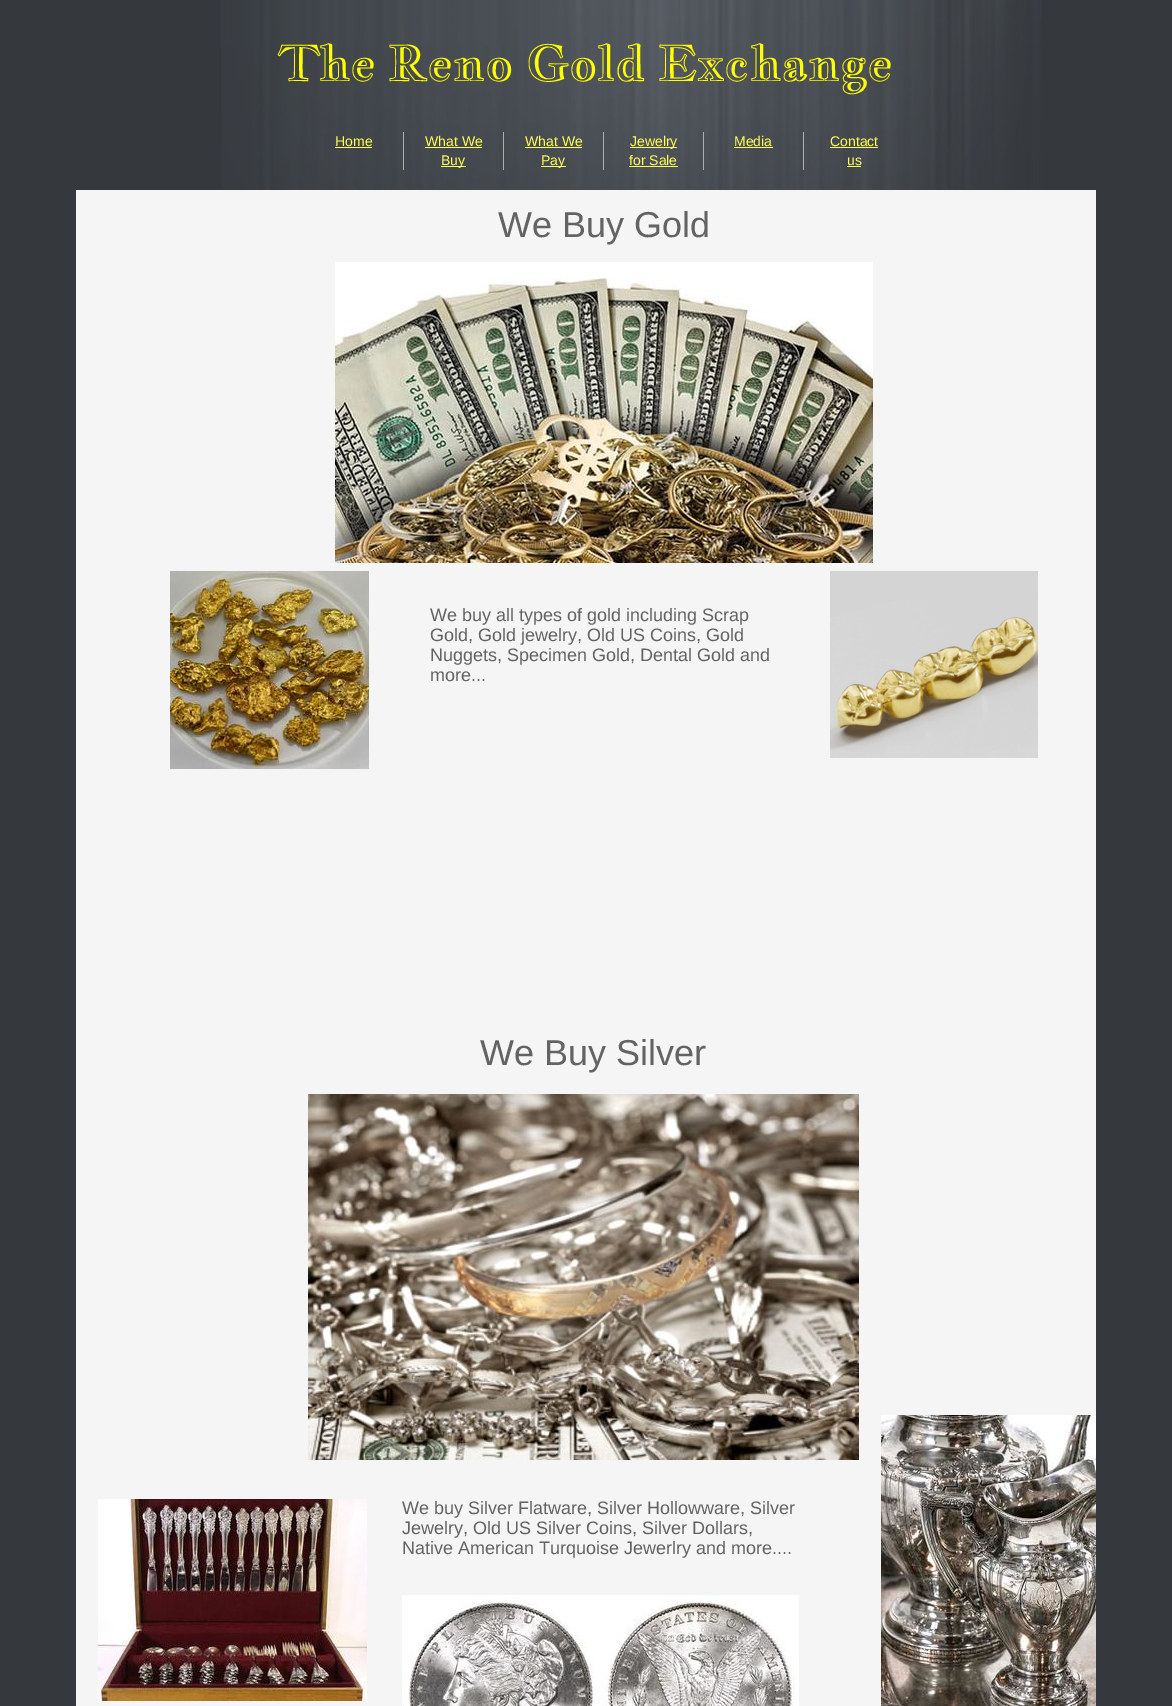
%!PS-Adobe-3.0
%%BoundingBox: 0 0 1172 1706
%%LanguageLevel: 3
%%Pages: 1
%%EndComments
%%BeginProlog
/setink { dup -16 bitshift 255 div exch dup -8 bitshift 255 and 255 div exch 255 and 255 div setrgbcolor } def
/usefont { [ exch dup neg 0 0 3 -1 roll 0 0 ] selectfont } def
/drawimage { 5 dict begin { /h /w /y /x /name } { exch def } forall
  gsave x y translate w h scale
  w h 8 [w 0 0 h 0 0] name (r) file false 3 colorimage grestore end } def
%%EndProlog
%%BeginSetup
<< /PageSize [1172 1706] >> setpagedevice
%%EndSetup
%%Page: 1 1
0 1706 translate 1 -1 scale
4 setmiterlimit
16#35383D setink
0 0 1172 1706 rectfill
(img1.raw) 221 0 821 190 drawimage
16#F5F5F5 setink
76 190 1020 1516 rectfill
/JacquesFrancoisShadow-Regular 48 usefont
16#FFFF00 setink
278 80 moveto (The Reno Gold Exchange) show
16#AEAEAE setink
403 132 1 38 rectfill
/LiberationSans-Regular 14 usefont
16#FFFF56 setink
335 146 moveto (Home) show
335 147 37 1 rectfill
16#AEAEAE setink
503 132 1 38 rectfill
16#FFFF56 setink
425 146 moveto (What We) show
425 147 57 1 rectfill
441 166 25 1 rectfill
441 165 moveto (Buy) show
16#AEAEAE setink
603 132 1 38 rectfill
16#FFFF56 setink
525 146 moveto (What We) show
525 147 57 1 rectfill
541 166 25 1 rectfill
541 165 moveto (Pay) show
16#AEAEAE setink
703 132 1 38 rectfill
16#FFFF56 setink
630 147 47 1 rectfill
630 146 moveto (Jewelry) show
629 165 moveto (for Sale) show
629 166 49 1 rectfill
16#AEAEAE setink
803 132 1 38 rectfill
16#FFFF56 setink
734 146 moveto (Media) show
734 147 39 1 rectfill
830 146 moveto (Contact) show
830 147 48 1 rectfill
847 165 moveto (us) show
847 166 14 1 rectfill
/LiberationSans-Regular 36 usefont
16#636363 setink
498 237 moveto (We Buy Gold) show
(img2.raw) 335 262 538 301 drawimage
(img3.raw) 170 571 199 198 drawimage
/LiberationSans-Regular 18 usefont
[
    [(We buy all types of gold including Scrap) 430 621]
    [(Gold, Gold jewelry, Old US Coins, Gold) 430 641]
    [(Nuggets, Specimen Gold, Dental Gold and) 430 661]
    [(more...) 430 681]
] { aload pop moveto show } forall
(img4.raw) 830 571 208 187 drawimage
/LiberationSans-Regular 36 usefont
480 1065 moveto (We Buy Silver) show
(img5.raw) 308 1094 551 366 drawimage
(img6.raw) 98 1499 269 202 drawimage
/LiberationSans-Regular 18 usefont
[
    [(We buy Silver Flatware, Silver Hollowware, Silver) 402 1514]
    [(Jewelry, Old US Silver Coins, Silver Dollars,) 402 1534]
    [(Native American Turquoise Jewerlry and more....) 402 1554]
] { aload pop moveto show } forall
(img7.raw) 881 1415 215 291 drawimage
(img8.raw) 402 1595 397 111 drawimage
showpage
%%EOF
